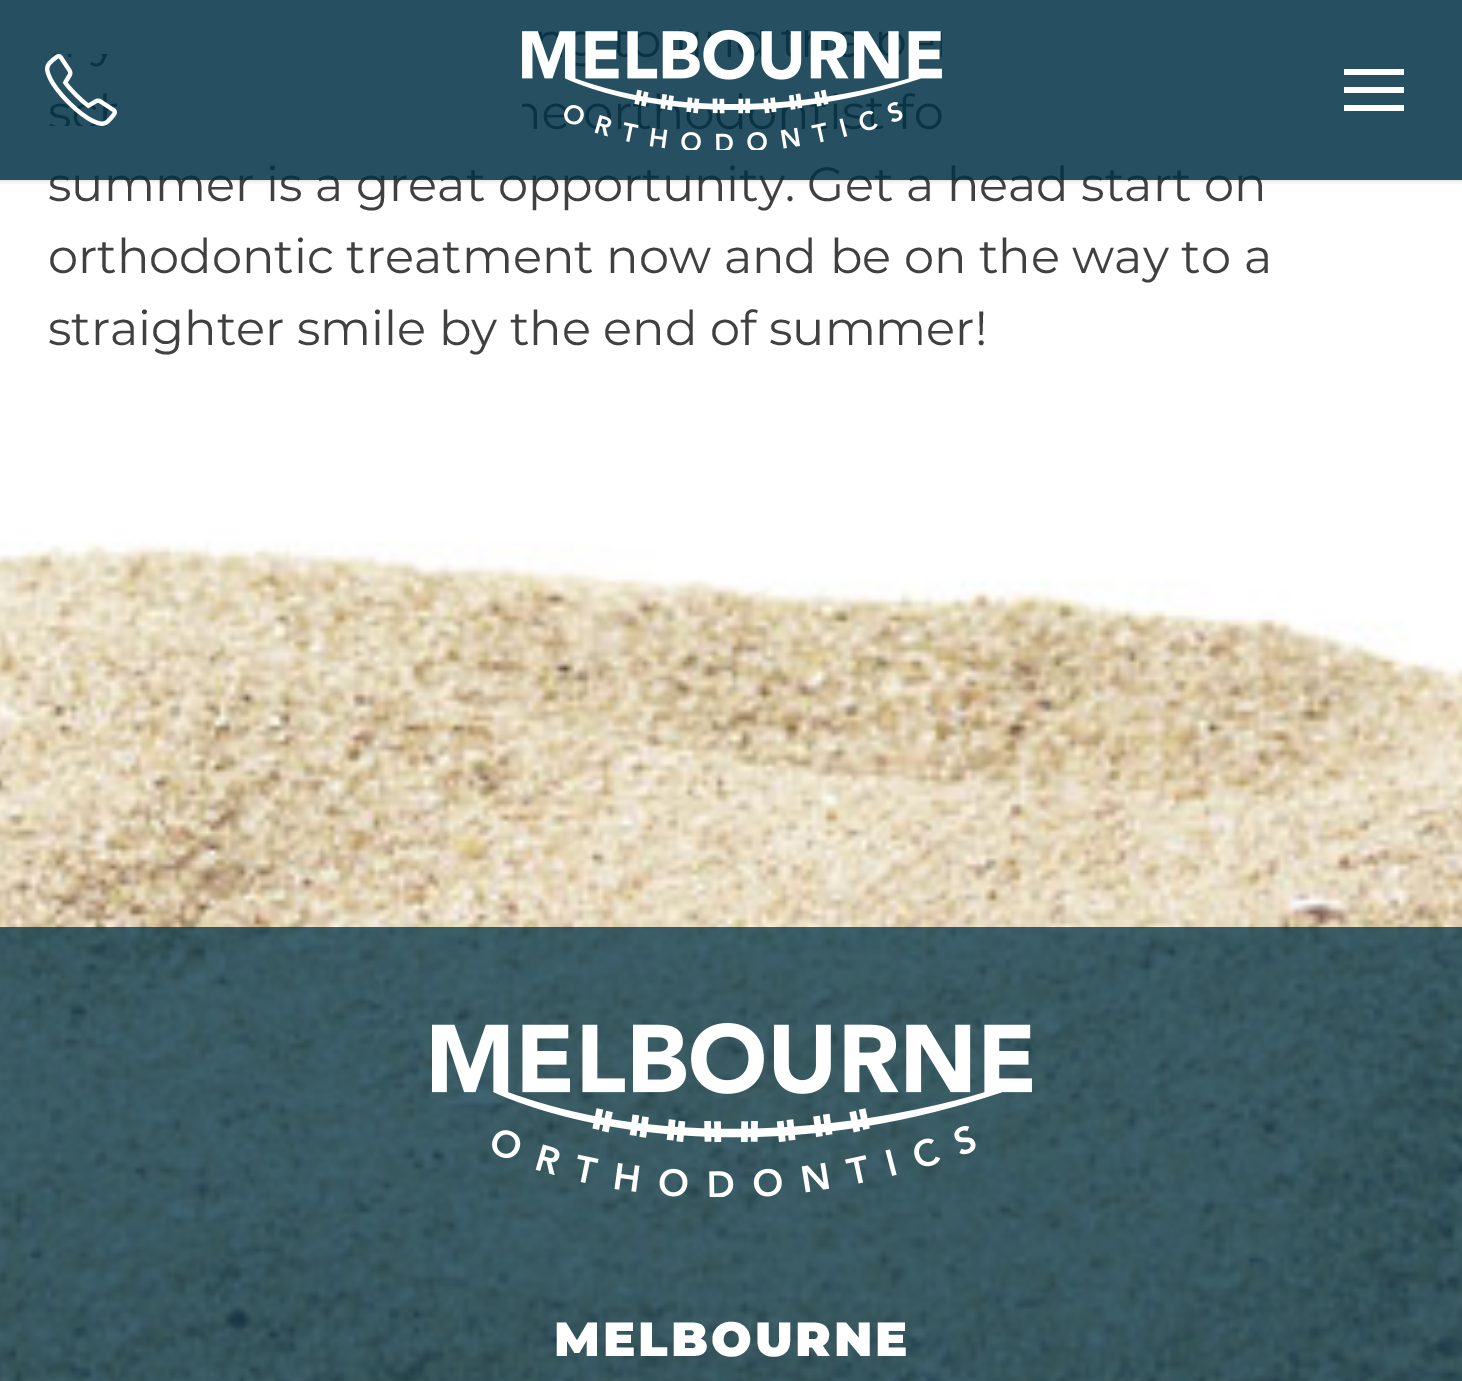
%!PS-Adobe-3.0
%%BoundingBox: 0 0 1462 1381
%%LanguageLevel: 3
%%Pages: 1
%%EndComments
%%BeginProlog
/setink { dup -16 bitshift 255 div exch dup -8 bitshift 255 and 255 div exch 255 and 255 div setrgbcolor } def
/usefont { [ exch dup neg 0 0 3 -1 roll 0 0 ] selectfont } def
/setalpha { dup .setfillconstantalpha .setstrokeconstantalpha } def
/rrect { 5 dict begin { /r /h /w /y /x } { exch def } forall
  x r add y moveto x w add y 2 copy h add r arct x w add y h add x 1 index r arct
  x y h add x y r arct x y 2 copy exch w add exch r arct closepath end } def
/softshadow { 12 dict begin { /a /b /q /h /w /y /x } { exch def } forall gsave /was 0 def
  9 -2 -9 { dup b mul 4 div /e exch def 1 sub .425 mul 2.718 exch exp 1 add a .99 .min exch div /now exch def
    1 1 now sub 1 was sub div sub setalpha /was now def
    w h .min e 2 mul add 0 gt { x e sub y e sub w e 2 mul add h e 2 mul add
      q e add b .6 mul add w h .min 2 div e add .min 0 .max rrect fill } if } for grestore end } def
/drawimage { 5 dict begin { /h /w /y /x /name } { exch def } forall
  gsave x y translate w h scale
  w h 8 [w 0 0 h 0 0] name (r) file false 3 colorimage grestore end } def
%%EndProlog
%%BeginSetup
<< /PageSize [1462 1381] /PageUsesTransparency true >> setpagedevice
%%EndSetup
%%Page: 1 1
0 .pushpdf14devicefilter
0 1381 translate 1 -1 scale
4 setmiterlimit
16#FFFFFF setink
0 0 1462 1381 rectfill
gsave
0 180 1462 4 rectclip
16#000000 setink
0 0 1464 180 0 3 0.2 softshadow
grestore
/Montserrat-Regular 48 usefont
16#404040 setink
48 201 moveto (summer is a great opportunity. Get a head start on) show
0.85 setalpha
16#003145 setink
0 0 1462 180 rectfill
1 setalpha
(img1.raw) 45 54 72 72 drawimage
(img2.raw) 522 30 420 120 drawimage
[
    [1344 87 60 6 16#FFFFFF]
    [1344 69 60 6 16#FFFFFF]
    [1344 105 60 6 16#FFFFFF]
] { aload pop setink rectfill } forall
16#404040 setink
48 273 moveto (orthodontic treatment now and be on the way to a) show
48 345 moveto (straighter smile by the end of summer!) show
(img3.raw) 0 540 1462 841 drawimage
0.75 setalpha
16#003145 setink
0 927 1462 454 rectfill
1 setalpha
(img4.raw) 432 1023 600 174 drawimage
/Montserrat-Black 48 usefont
16#FFFFFF setink
554 1356 moveto 3 0 (MELBOURNE) ashow
.poppdf14devicefilter showpage
%%EOF
